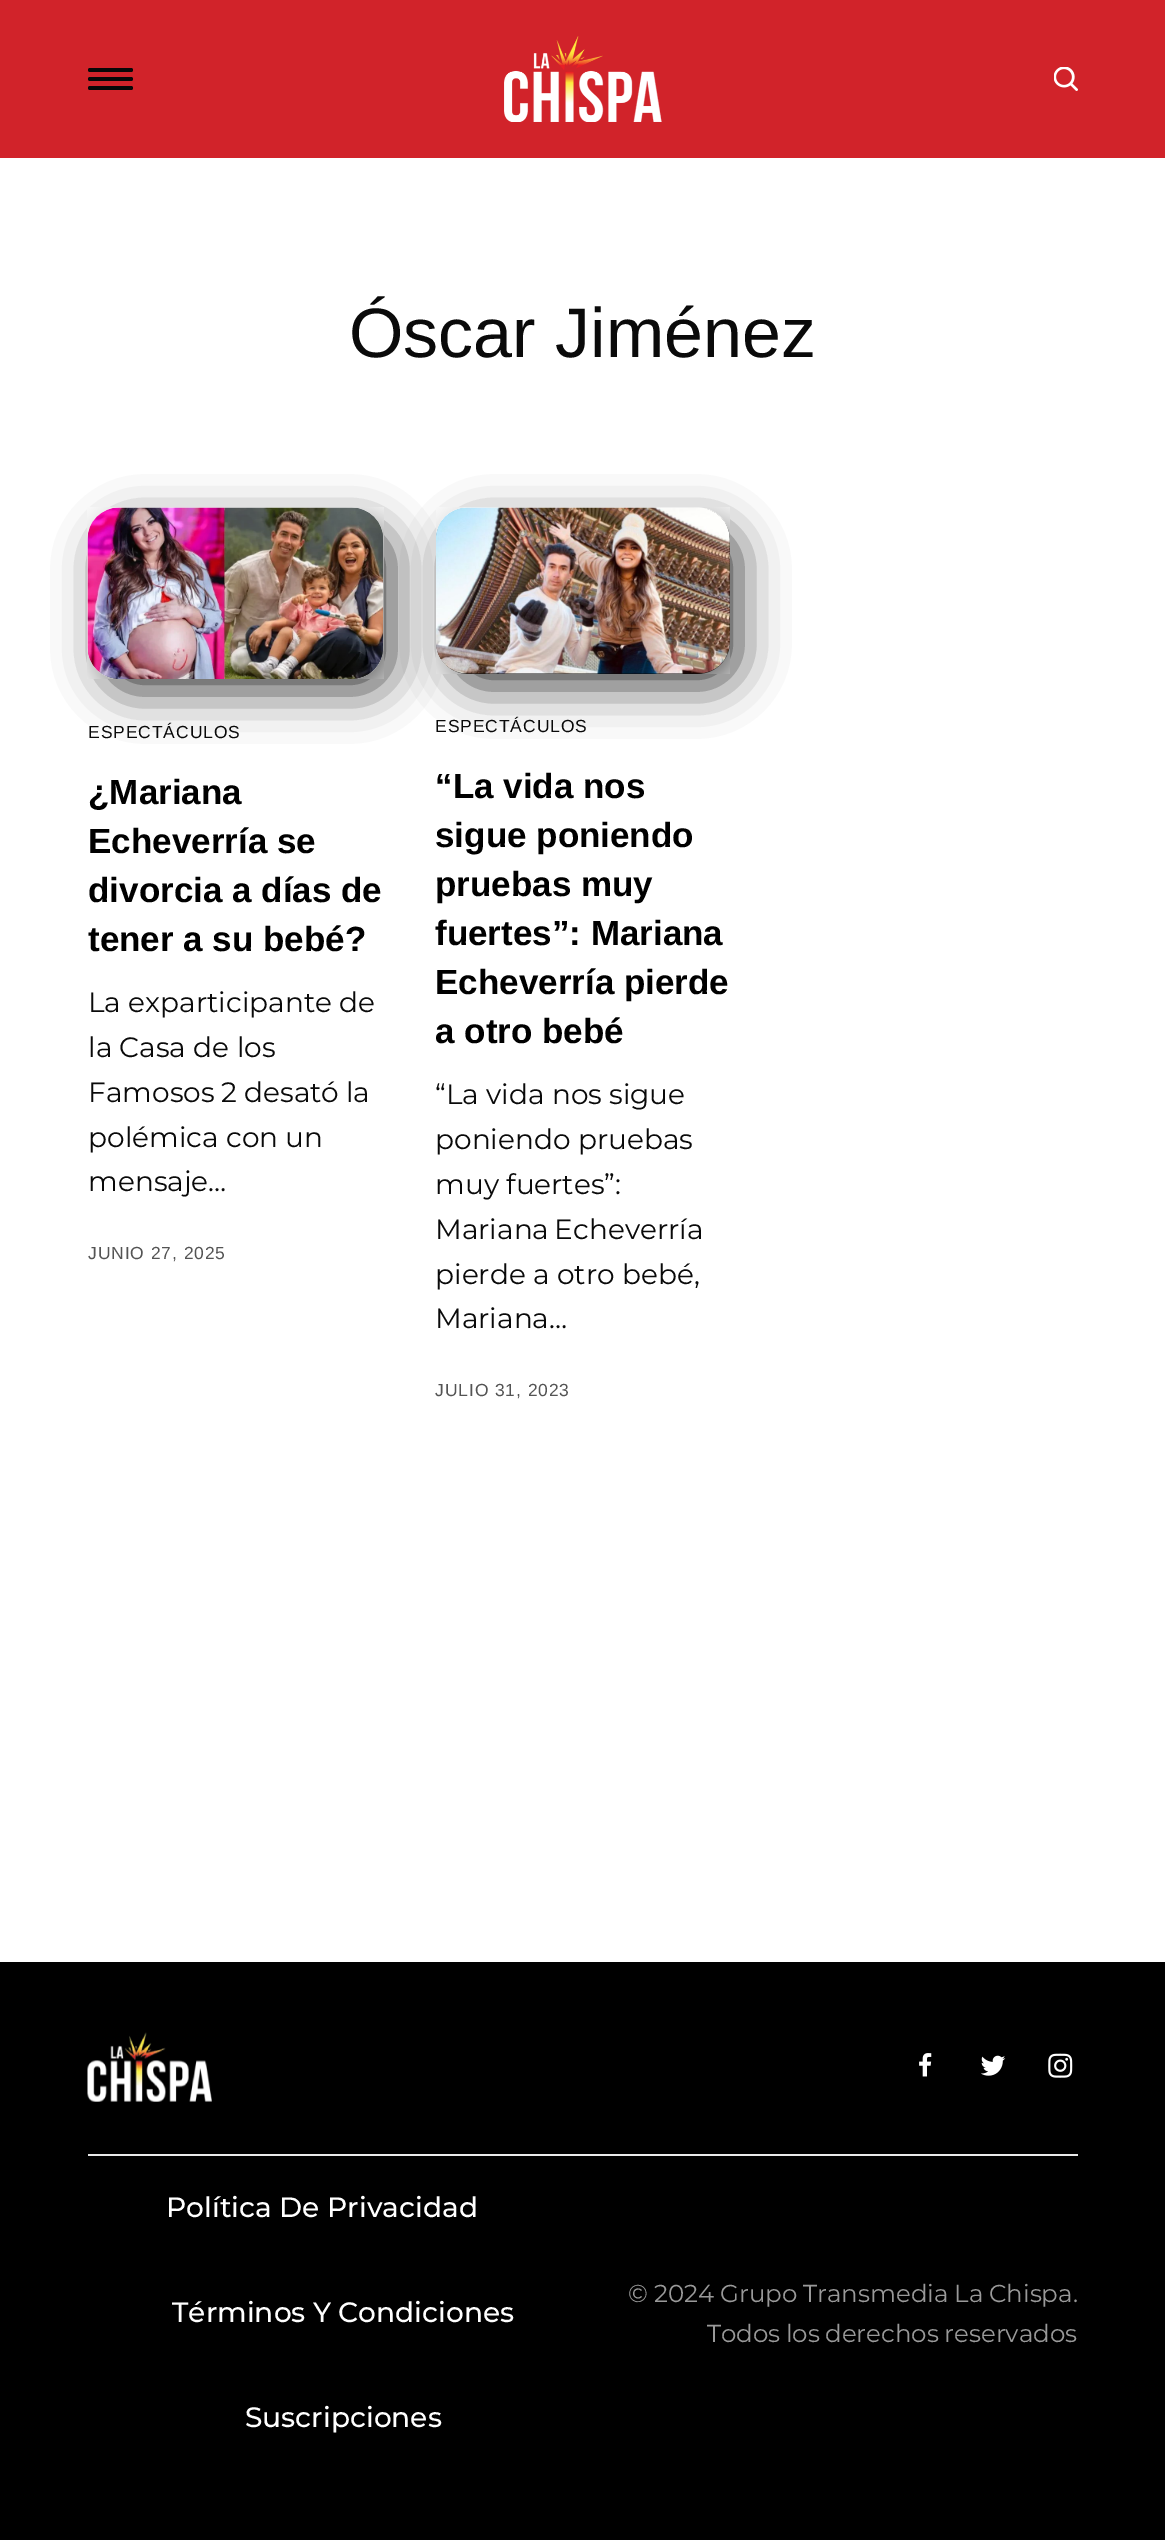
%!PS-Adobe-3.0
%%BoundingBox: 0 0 1165 2540
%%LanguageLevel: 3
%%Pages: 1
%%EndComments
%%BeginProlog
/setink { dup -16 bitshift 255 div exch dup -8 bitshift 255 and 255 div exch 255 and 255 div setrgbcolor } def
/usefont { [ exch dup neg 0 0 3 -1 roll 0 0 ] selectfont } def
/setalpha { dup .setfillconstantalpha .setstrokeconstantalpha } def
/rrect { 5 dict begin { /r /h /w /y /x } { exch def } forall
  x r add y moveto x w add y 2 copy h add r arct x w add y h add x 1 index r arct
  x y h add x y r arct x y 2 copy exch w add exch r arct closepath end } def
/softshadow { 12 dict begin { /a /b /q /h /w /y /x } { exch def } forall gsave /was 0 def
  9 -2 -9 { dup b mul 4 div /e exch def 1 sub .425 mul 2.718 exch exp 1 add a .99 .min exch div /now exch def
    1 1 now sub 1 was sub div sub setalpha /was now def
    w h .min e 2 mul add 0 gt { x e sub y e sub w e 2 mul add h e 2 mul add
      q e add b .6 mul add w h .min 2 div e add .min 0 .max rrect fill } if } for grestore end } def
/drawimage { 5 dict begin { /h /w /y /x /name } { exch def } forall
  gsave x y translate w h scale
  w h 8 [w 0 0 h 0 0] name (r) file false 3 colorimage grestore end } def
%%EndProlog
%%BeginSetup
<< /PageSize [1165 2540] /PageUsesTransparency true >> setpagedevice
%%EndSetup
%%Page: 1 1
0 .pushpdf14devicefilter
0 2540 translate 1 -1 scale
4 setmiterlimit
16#FFFFFF setink
0 0 1165 2540 rectfill
16#D1232A setink
0 0 1165 158 rectfill
16#080808 setink
88 68 45 4 2 rrect fill
88 77 45 4 2 rrect fill
88 86 45 4 2 rrect fill
(img1.raw) 504 36 158 86 drawimage
(img2.raw) 1054 67 24 24 drawimage
/LiberationSans-Regular 70 usefont
16#0A0A0A setink
349 357 moveto (Óscar Jiménez) show
16#000000 setink
103 527 289 164 28 23.5 0.75 softshadow
(img3.raw) 87 507 297 172 drawimage
/LiberationSans-Regular 17.5 usefont
16#0A0A0A setink
88 738 moveto 0.9 0 (ESPECTÁCULOS) ashow
/LiberationSans-Bold 35 usefont
16#000000 setink
[
    [(¿Mariana) 88 804]
    [(Echeverría se) 88 853]
    [(divorcia a días de) 88 902]
    [(tener a su bebé?) 88 951]
] { aload pop moveto show } forall
/Montserrat-Regular 28 usefont
16#0A0A0A setink
88 1012 moveto (La exparticipante de) show
88 1057 moveto (la Casa de los) show
88 1102 moveto -0.5 0 32 (Famosos 2 desató la) widthshow
88 1147 moveto (polémica con un) show
88 1191 moveto (mensaje…) show
/LiberationSans-Regular 17.5 usefont
16#545454 setink
88 1259 moveto 0.9 0 (JUNIO 27, 2025) ashow
16#000000 setink
452 527 287 159 28 23.5 0.75 softshadow
16#0A0A0A setink
436 508 294 166 32 rrect fill
(img4.raw) 436 507 294 167 drawimage
435 732 moveto 0.9 0 (ESPECTÁCULOS) ashow
/LiberationSans-Bold 35 usefont
16#000000 setink
[
    [(“La vida nos) 435 798]
    [(sigue poniendo) 435 847]
    [(pruebas muy) 435 896]
    [(fuertes”: Mariana) 435 945]
    [(Echeverría pierde) 435 994]
    [(a otro bebé) 435 1043]
] { aload pop moveto show } forall
/Montserrat-Regular 28 usefont
16#0A0A0A setink
[
    [(“La vida nos sigue) 435 1104]
    [(poniendo pruebas) 435 1149]
    [(muy fuertes”:) 435 1194]
] { aload pop moveto show } forall
435 1239 moveto -2 0 32 (Mariana Echeverría) widthshow
435 1284 moveto (pierde a otro bebé,) show
435 1328 moveto (Mariana…) show
/LiberationSans-Regular 17.5 usefont
16#545454 setink
435 1396 moveto 0.9 0 (JULIO 31, 2023) ashow
16#000000 setink
0 1962 1165 578 rectfill
(img5.raw) 87 2032 125 70 drawimage
(img6.raw) 919 2053 13 24 drawimage
(img7.raw) 981 2055 25 21 drawimage
(img8.raw) 1048 2053 25 25 drawimage
16#E9E9E9 setink
88 2154 990 2 rectfill
/Montserrat-Medium 28 usefont
16#FFFFFF setink
[
    [(Política De Privacidad) 166 2217]
    [(Términos Y Condiciones) 172 2322]
    [(Suscripciones) 245 2427]
] { aload pop moveto show } forall
/Montserrat-Regular 24.5 usefont
16#999999 setink
628 2302 moveto -0.5 0 32 (© 2024 Grupo Transmedia La Chispa.) widthshow
707 2342 moveto -1 0 32 (Todos los derechos reservados) widthshow
.poppdf14devicefilter showpage
%%EOF
